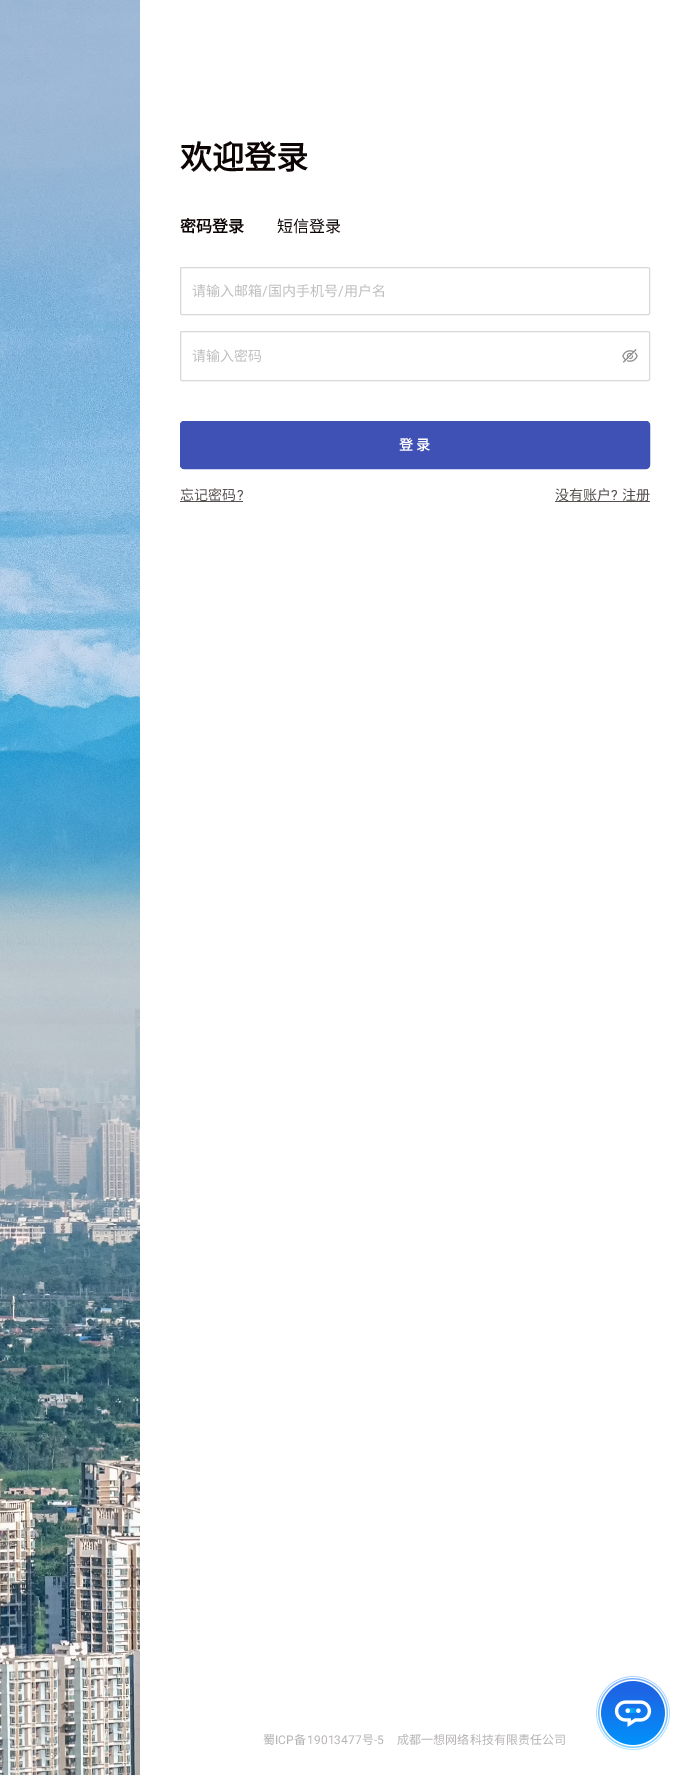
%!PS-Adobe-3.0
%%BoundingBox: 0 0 690 1775
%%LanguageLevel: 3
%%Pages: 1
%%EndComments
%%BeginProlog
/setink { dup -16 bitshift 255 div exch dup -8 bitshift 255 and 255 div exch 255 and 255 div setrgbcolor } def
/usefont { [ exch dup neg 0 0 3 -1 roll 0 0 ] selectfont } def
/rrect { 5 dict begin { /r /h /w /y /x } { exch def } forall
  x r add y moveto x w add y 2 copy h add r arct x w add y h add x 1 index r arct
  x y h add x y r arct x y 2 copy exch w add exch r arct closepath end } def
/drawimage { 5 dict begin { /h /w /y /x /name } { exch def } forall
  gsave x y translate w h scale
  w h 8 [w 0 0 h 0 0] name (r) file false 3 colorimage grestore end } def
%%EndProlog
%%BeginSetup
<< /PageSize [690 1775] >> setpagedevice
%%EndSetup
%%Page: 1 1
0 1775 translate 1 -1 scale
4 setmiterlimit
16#FFFFFF setink
0 0 690 1775 rectfill
(img1.raw) 0 0 140 1775 drawimage
/NotoSansCJKSC-Bold 32 usefont
16#0D0404 setink
180 169 moveto 0.1 0 (欢迎登录) ashow
/NotoSansCJKSC-Bold 16 usefont
180 232 moveto 0.1 0 (密码登录) ashow
/NotoSansCJKSC-Regular 16 usefont
277 232 moveto 0.1 0 (短信登录) ashow
16#D9D9D9 setink
180.5 267.5 469 47 1.5 rrect stroke
/NotoSansCJKSC-Regular 14 usefont
16#BFBFBF setink
192 296 moveto (请输入邮箱) show
/Roboto-Regular 14 usefont
262 296 moveto (/) show
/NotoSansCJKSC-Regular 14 usefont
268 296 moveto (国内手机号) show
/Roboto-Regular 14 usefont
338 296 moveto (/) show
/NotoSansCJKSC-Regular 14 usefont
344 296 moveto (用户名) show
16#D9D9D9 setink
180.5 331.5 469 49 1.5 rrect stroke
16#BFBFBF setink
192 361 moveto (请输入密码) show
(img2.raw) 622 349 16 14 drawimage
16#3F51B5 setink
180.5 421.5 469 47 3.5 rrect gsave fill grestore
stroke
/NotoSansCJKSC-Bold 14 usefont
16#FFFFFF setink
399 450 moveto (登 录) show
16#564F4F setink
180 501 63 1 rectfill
/NotoSansCJKSC-Regular 14 usefont
180 500 moveto 0.1 0 (忘记密码) ashow
/Roboto-Regular 14 usefont
237 500 moveto 0.1 0 (?) ashow
555 501 95 1 rectfill
/NotoSansCJKSC-Regular 14 usefont
555 500 moveto 0.1 0 (没有账户) ashow
/Roboto-Regular 14 usefont
611 500 moveto 0.1 0 (?) ashow
/NotoSansCJKSC-Regular 14 usefont
622 500 moveto 0.1 0 (注册) ashow
/NotoSansCJKSC-Regular 12 usefont
16#B6B4B4 setink
263 1744 moveto 0.1 0 (蜀) ashow
/Roboto-Regular 12 usefont
275 1744 moveto 0.1 0 (ICP) ashow
/NotoSansCJKSC-Regular 12 usefont
294 1744 moveto 0.1 0 (备) ashow
/Roboto-Regular 12 usefont
307 1744 moveto 0.1 0 (19013477) ashow
/NotoSansCJKSC-Regular 12 usefont
362 1744 moveto 0.1 0 (号) ashow
/Roboto-Regular 12 usefont
374 1744 moveto 0.1 0 (-5) ashow
/NotoSansCJKSC-Regular 12 usefont
397 1744 moveto 0.1 0 (成都一想网络科技有限责任公司) ashow
(img3.raw) 596 1676 74 74 drawimage
showpage
%%EOF
